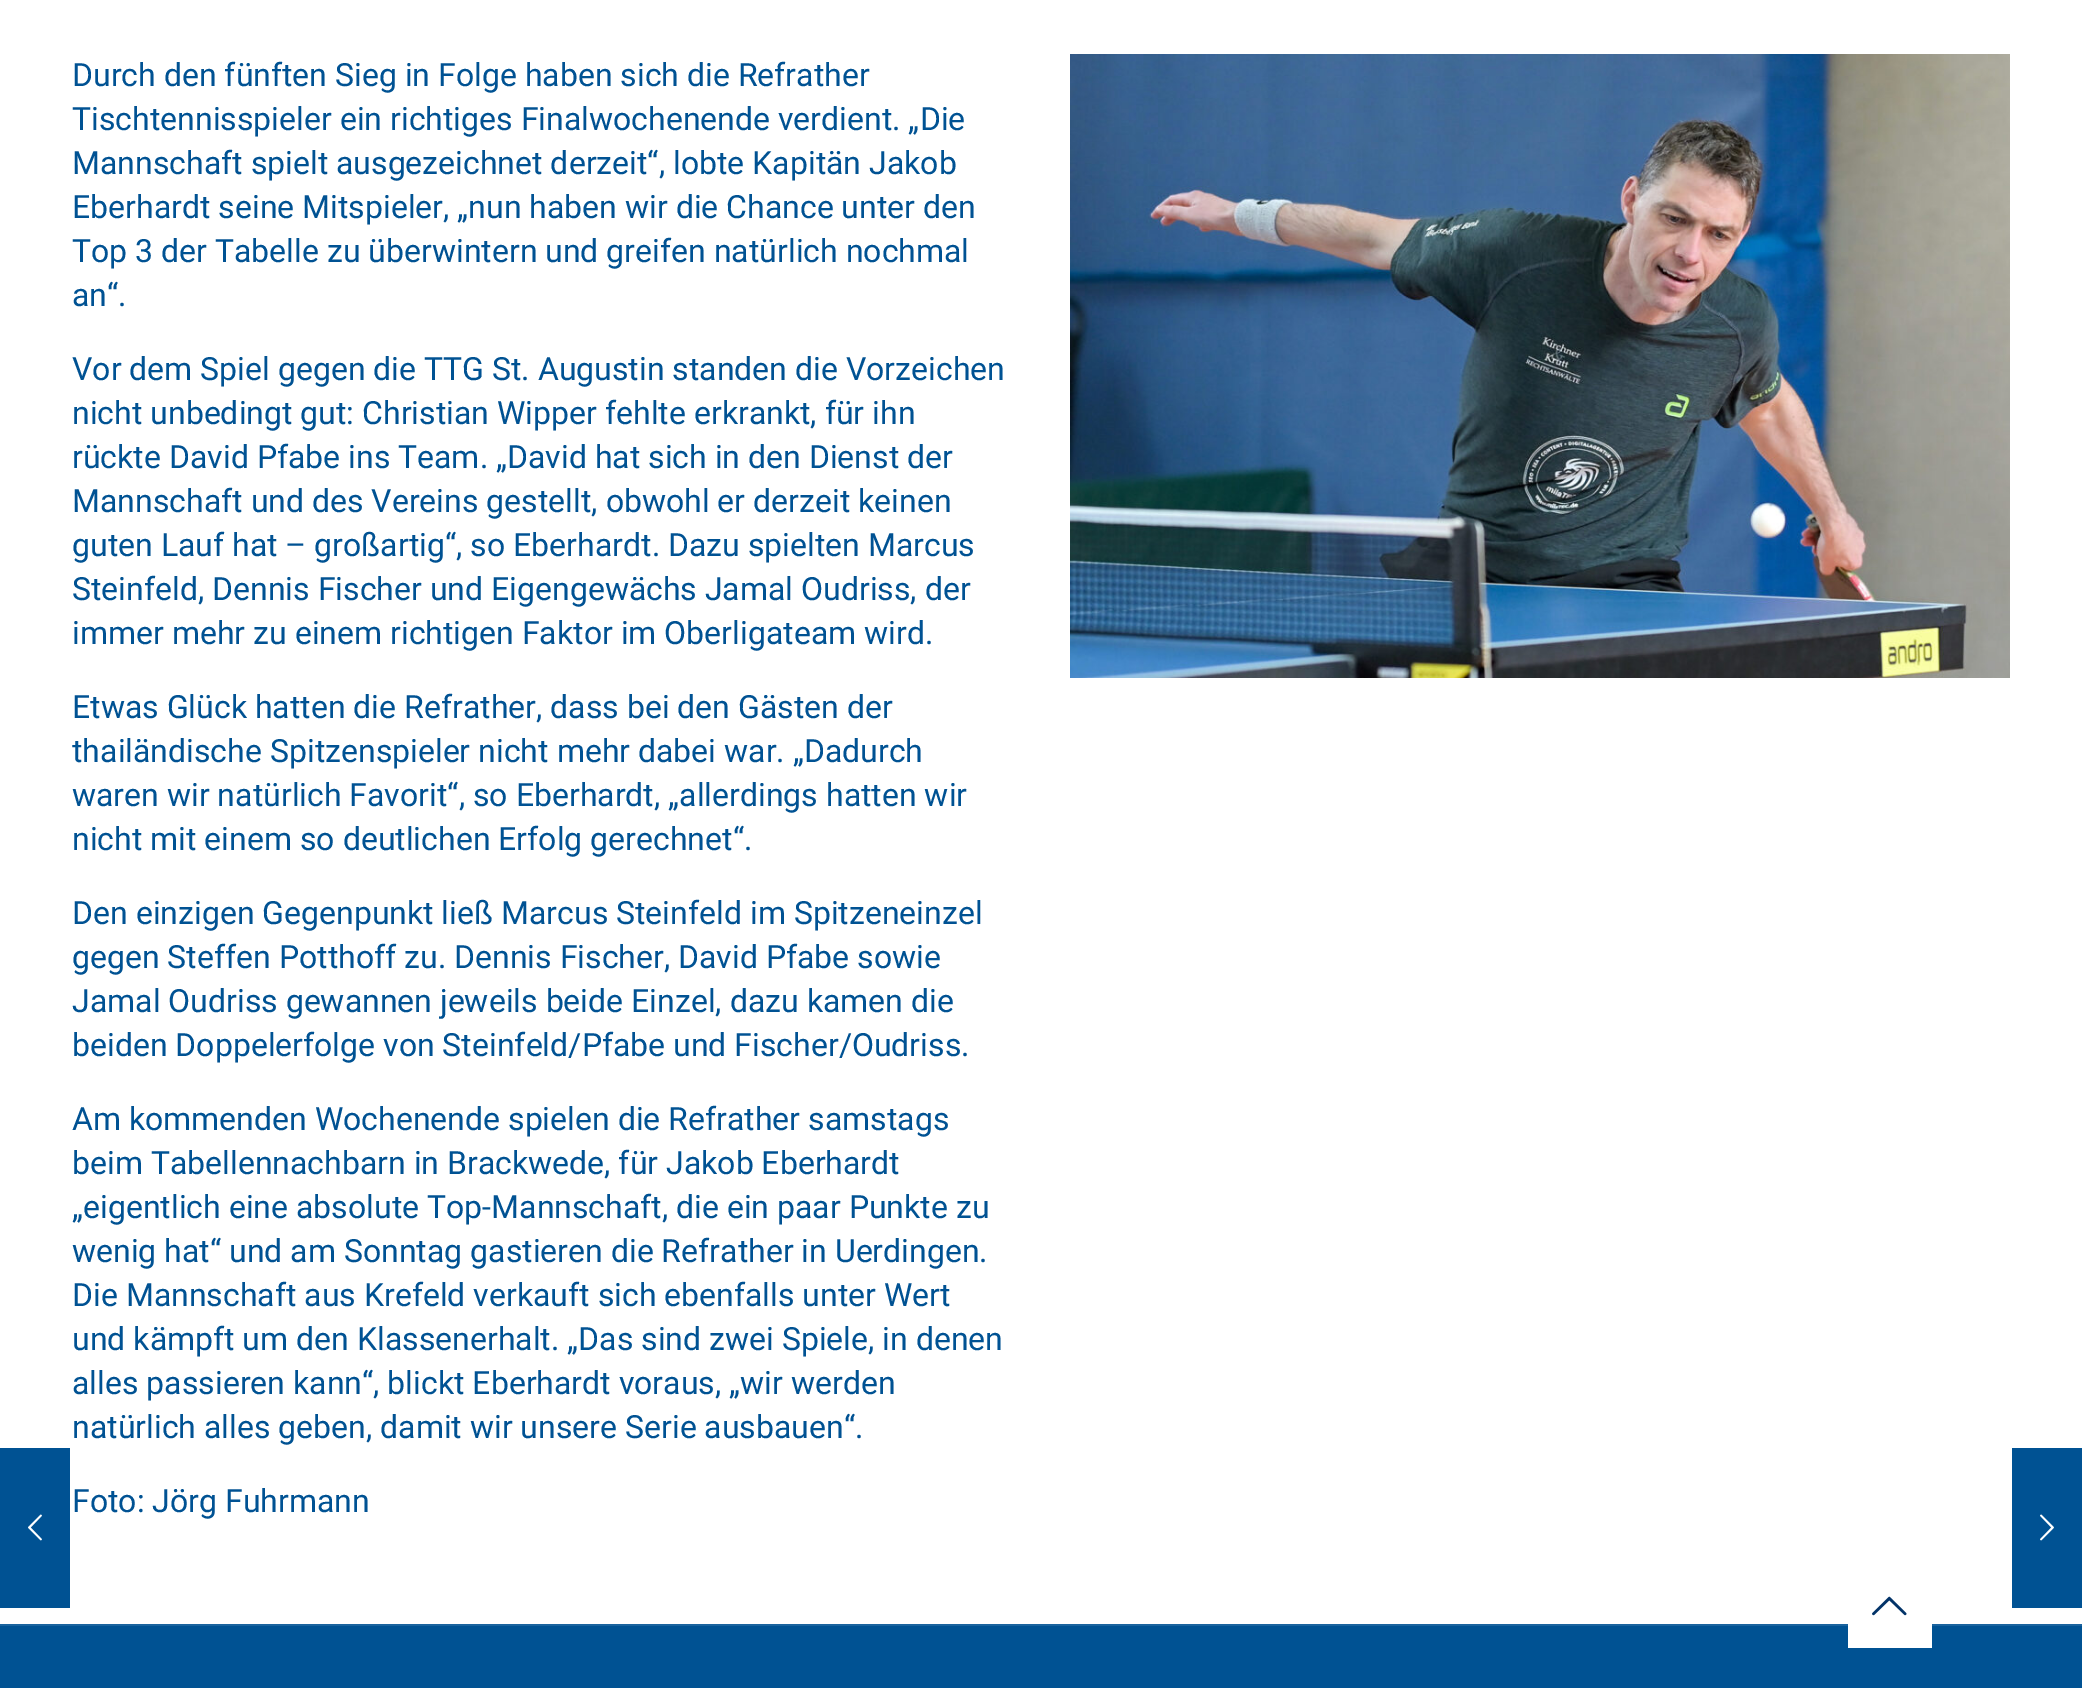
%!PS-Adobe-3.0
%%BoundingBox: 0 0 2082 1688
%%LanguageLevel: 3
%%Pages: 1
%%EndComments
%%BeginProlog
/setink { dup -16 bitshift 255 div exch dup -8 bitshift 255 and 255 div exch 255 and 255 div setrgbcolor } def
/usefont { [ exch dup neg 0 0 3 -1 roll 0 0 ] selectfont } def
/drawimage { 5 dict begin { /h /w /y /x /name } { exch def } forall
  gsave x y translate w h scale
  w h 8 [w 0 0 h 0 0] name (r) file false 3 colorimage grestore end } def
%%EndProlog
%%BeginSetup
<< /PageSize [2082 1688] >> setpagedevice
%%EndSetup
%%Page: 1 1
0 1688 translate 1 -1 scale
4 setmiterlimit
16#FFFFFF setink
0 0 2082 1688 rectfill
16#005293 setink
0 1448 70 160 rectfill
(img1.raw) 28 1514 14 27 drawimage
/Roboto-Regular 32 usefont
[
    [(Durch den fünften Sieg in Folge haben sich die Refrather) 72 86]
    [(Tischtennisspieler ein richtiges Finalwochenende verdient. „Die) 72 130]
    [(Mannschaft spielt ausgezeichnet derzeit“, lobte Kapitän Jakob) 72 174]
    [(Eberhardt seine Mitspieler, „nun haben wir die Chance unter den) 72 218]
    [(Top 3 der Tabelle zu überwintern und greifen natürlich nochmal) 72 262]
    [(an“.) 72 306]
    [(Vor dem Spiel gegen die TTG St. Augustin standen die Vorzeichen) 72 380]
    [(nicht unbedingt gut: Christian Wipper fehlte erkrankt, für ihn) 72 424]
    [(rückte David Pfabe ins Team. „David hat sich in den Dienst der) 72 468]
    [(Mannschaft und des Vereins gestellt, obwohl er derzeit keinen) 72 512]
    [(guten Lauf hat – großartig“, so Eberhardt. Dazu spielten Marcus) 72 556]
    [(Steinfeld, Dennis Fischer und Eigengewächs Jamal Oudriss, der) 72 600]
    [(immer mehr zu einem richtigen Faktor im Oberligateam wird.) 72 644]
    [(Etwas Glück hatten die Refrather, dass bei den Gästen der) 72 718]
    [(thailändische Spitzenspieler nicht mehr dabei war. „Dadurch) 72 762]
    [(waren wir natürlich Favorit“, so Eberhardt, „allerdings hatten wir) 72 806]
    [(nicht mit einem so deutlichen Erfolg gerechnet“.) 72 850]
    [(Den einzigen Gegenpunkt ließ Marcus Steinfeld im Spitzeneinzel) 72 924]
    [(gegen Steffen Potthoff zu. Dennis Fischer, David Pfabe sowie) 72 968]
    [(Jamal Oudriss gewannen jeweils beide Einzel, dazu kamen die) 72 1012]
    [(beiden Doppelerfolge von Steinfeld/Pfabe und Fischer/Oudriss.) 72 1056]
    [(Am kommenden Wochenende spielen die Refrather samstags) 72 1130]
    [(beim Tabellennachbarn in Brackwede, für Jakob Eberhardt) 72 1174]
    [(„eigentlich eine absolute Top-Mannschaft, die ein paar Punkte zu) 72 1218]
    [(wenig hat“ und am Sonntag gastieren die Refrather in Uerdingen.) 72 1262]
    [(Die Mannschaft aus Krefeld verkauft sich ebenfalls unter Wert) 72 1306]
    [(und kämpft um den Klassenerhalt. „Das sind zwei Spiele, in denen) 72 1350]
    [(alles passieren kann“, blickt Eberhardt voraus, „wir werden) 72 1394]
    [(natürlich alles geben, damit wir unsere Serie ausbauen“.) 72 1438]
    [(Foto: Jörg Fuhrmann) 72 1512]
] { aload pop moveto show } forall
(img2.raw) 1070 54 940 624 drawimage
[
    [0 1626 2082 62 16#005293]
    [0 1624 2082 2 16#1A639E]
    [2012 1448 70 160 16#005293]
] { aload pop setink rectfill } forall
(img3.raw) 2040 1514 14 27 drawimage
16#FFFFFF setink
1848 1624 84 24 rectfill
(img4.raw) 1872 1596 35 20 drawimage
showpage
%%EOF
